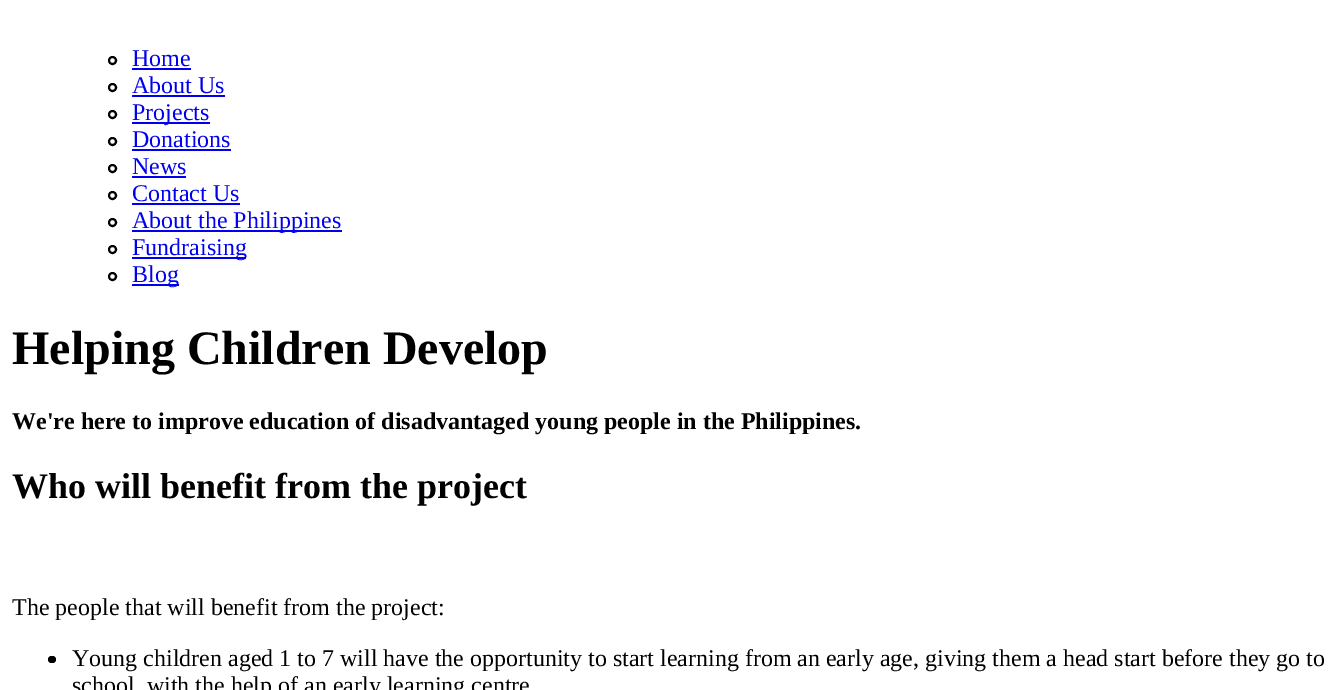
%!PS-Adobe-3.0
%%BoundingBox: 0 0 1343 690
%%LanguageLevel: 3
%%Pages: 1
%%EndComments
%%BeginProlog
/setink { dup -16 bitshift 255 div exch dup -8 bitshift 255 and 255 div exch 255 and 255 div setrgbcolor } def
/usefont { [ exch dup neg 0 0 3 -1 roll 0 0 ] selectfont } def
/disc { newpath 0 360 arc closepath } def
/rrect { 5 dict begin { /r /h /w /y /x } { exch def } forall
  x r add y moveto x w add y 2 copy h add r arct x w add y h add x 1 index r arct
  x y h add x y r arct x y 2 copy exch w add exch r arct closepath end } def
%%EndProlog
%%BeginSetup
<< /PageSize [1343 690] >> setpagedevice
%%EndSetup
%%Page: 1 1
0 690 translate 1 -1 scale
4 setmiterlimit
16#FFFFFF setink
0 0 1343 690 rectfill
16#000000 setink
2 setlinewidth
112.5 60.5 3.5 disc stroke
/LiberationSerif-Regular 24 usefont
16#0000EE setink
132 66 moveto (Home) show
132 68 59 2 rectfill
16#000000 setink
112.5 87.5 3.5 disc stroke
16#0000EE setink
132 93 moveto (About Us) show
132 95 93 2 rectfill
16#000000 setink
112.5 114.5 3.5 disc stroke
16#0000EE setink
132 122 78 2 rectfill
132 120 moveto (Projects) show
16#000000 setink
112.5 141.5 3.5 disc stroke
16#0000EE setink
132 147 moveto (Donations) show
132 149 99 2 rectfill
16#000000 setink
112.5 168.5 3.5 disc stroke
16#0000EE setink
132 174 moveto (News) show
132 176 54 2 rectfill
16#000000 setink
112.5 195.5 3.5 disc stroke
16#0000EE setink
132 201 moveto (Contact Us) show
132 203 108 2 rectfill
16#000000 setink
112.5 222.5 3.5 disc stroke
16#0000EE setink
132 230 210 2 rectfill
132 228 moveto (About the Philippines) show
16#000000 setink
112.5 249.5 3.5 disc stroke
16#0000EE setink
132 257 114 2 rectfill
132 255 moveto (Fundraising) show
16#000000 setink
112.5 276.5 3.5 disc stroke
16#0000EE setink
132 284 47 2 rectfill
132 282 moveto (Blog) show
/LiberationSerif-Bold 48 usefont
16#000000 setink
12 364 moveto (Helping Children Develop) show
/LiberationSerif-Bold 24 usefont
12 429 moveto (We're here to improve education of disadvantaged young people in the Philippines.) show
/LiberationSerif-Bold 36 usefont
12 498 moveto (Who will benefit from the project) show
/LiberationSerif-Regular 24 usefont
12 615 moveto (The people that will benefit from the project:) show
48 656 8 7 3.5 rrect fill
72 666 moveto (Young children aged 1 to 7 will have the opportunity to start learning from an early age, giving them a head start before they go to) show
72 693 moveto (school, with the help of an early learning centre) show
showpage
%%EOF
